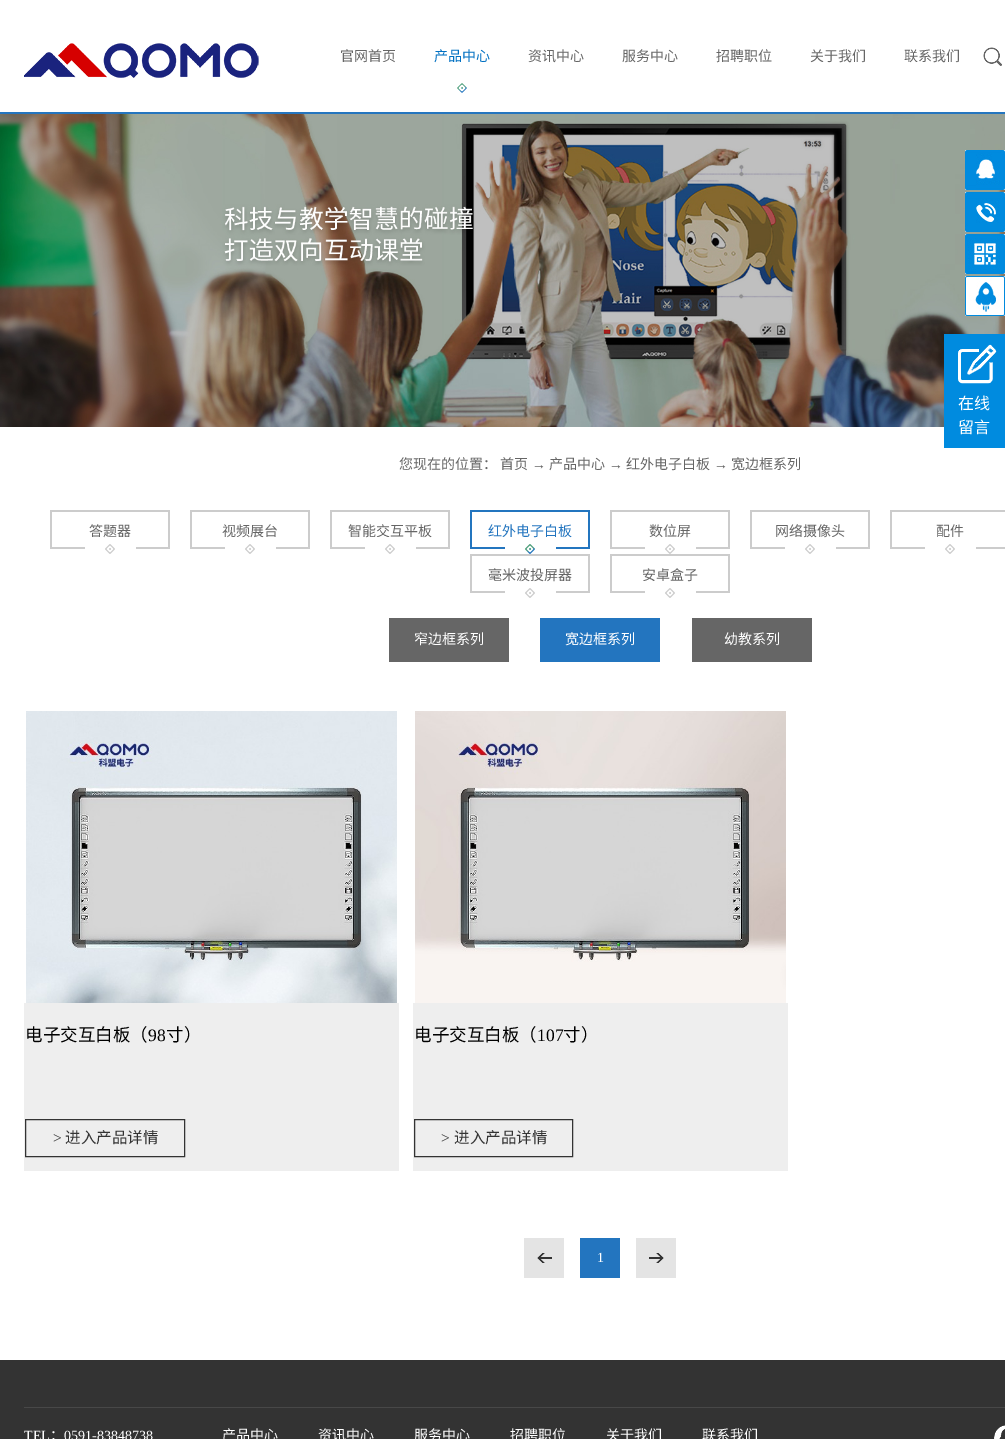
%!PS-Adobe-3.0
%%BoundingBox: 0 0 1005 1439
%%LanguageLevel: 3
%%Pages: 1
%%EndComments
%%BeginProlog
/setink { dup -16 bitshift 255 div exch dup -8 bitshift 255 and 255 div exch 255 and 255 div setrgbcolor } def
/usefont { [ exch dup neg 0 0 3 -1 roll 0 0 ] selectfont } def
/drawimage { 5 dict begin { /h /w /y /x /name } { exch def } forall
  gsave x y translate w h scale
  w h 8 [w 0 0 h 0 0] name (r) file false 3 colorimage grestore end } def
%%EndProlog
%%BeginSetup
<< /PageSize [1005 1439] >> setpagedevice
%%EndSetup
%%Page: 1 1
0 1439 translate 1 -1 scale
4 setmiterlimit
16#FFFFFF setink
0 0 1005 1439 rectfill
16#2475BF setink
0 112 1005 2 rectfill
(img1.raw) 24 43 235 35 drawimage
/NotoSansCJKSC-Regular 14 usefont
16#666666 setink
340 61 moveto (官网首页) show
(img2.raw) 457 83 10 10 drawimage
16#0070C2 setink
434 61 moveto (产品中心) show
16#666666 setink
[
    [(资讯中心) 528 61]
    [(服务中心) 622 61]
    [(招聘职位) 716 61]
    [(关于我们) 810 61]
    [(联系我们) 904 61]
] { aload pop moveto show } forall
(img3.raw) 983 47 19 19 drawimage
(img4.raw) 0 114 1005 313 drawimage
(img5.raw) 965 150 40 40 drawimage
(img6.raw) 965 192 40 40 drawimage
(img7.raw) 965 234 40 40 drawimage
(img8.raw) 965 276 40 40 drawimage
16#008BDF setink
944 334 61 114 rectfill
(img9.raw) 958 344 39 40 drawimage
/NotoSansCJKSC-Regular 16 usefont
16#FFFFFF setink
958 409 moveto (在线) show
958 433 moveto (留言) show
/NotoSansCJKSC-Regular 14 usefont
16#666666 setink
399 469 moveto (您现在的位置：) show
500 469 moveto (首页) show
/LiberationSerif-Regular 14 usefont
532 469 moveto (→) show
/NotoSansCJKSC-Regular 14 usefont
549 469 moveto (产品中心) show
/LiberationSerif-Regular 14 usefont
609 469 moveto (→) show
/NotoSansCJKSC-Regular 14 usefont
626 469 moveto (红外电子白板) show
/LiberationSerif-Regular 14 usefont
714 469 moveto (→) show
/NotoSansCJKSC-Regular 14 usefont
731 469 moveto (宽边框系列) show
(img10.raw) 50 510 120 44 drawimage
89 536 moveto (答题器) show
(img10.raw) 190 510 120 44 drawimage
222 536 moveto (视频展台) show
(img10.raw) 330 510 120 44 drawimage
348 536 moveto (智能交互平板) show
(img11.raw) 470 510 120 44 drawimage
16#2375BF setink
488 536 moveto (红外电子白板) show
16#666666 setink
389 618 120 44 rectfill
16#FFFFFF setink
414 644 moveto (窄边框系列) show
16#2375BF setink
540 618 120 44 rectfill
16#FFFFFF setink
565 644 moveto (宽边框系列) show
16#666666 setink
692 618 120 44 rectfill
16#FFFFFF setink
724 644 moveto (幼教系列) show
(img10.raw) 610 510 120 44 drawimage
16#666666 setink
649 536 moveto (数位屏) show
(img10.raw) 750 510 120 44 drawimage
775 536 moveto (网络摄像头) show
(img12.raw) 890 510 115 44 drawimage
936 536 moveto (配件) show
(img10.raw) 470 554 120 44 drawimage
488 580 moveto (毫米波投屏器) show
(img10.raw) 610 554 120 44 drawimage
642 580 moveto (安卓盒子) show
(img13.raw) 26 711 371 292 drawimage
16#EEEEEE setink
24 1003 375 168 rectfill
/NotoSansCJKSC-Regular 17.5 usefont
16#000000 setink
25 1041 moveto (电子交互白板（) show
/LiberationSerif-Regular 17.5 usefont
148 1041 moveto (98) show
/NotoSansCJKSC-Regular 17.5 usefont
166 1041 moveto (寸）) show
16#333333 setink
25.5 1119.5 159 37 rectstroke
/LiberationSerif-Regular 15.5 usefont
53 1143 moveto (>) show
/NotoSansCJKSC-Regular 15.5 usefont
65 1143 moveto (进入产品详情) show
(img14.raw) 415 711 371 292 drawimage
16#EEEEEE setink
413 1003 375 168 rectfill
/NotoSansCJKSC-Regular 17.5 usefont
16#000000 setink
414 1041 moveto (电子交互白板（) show
/LiberationSerif-Regular 17.5 usefont
537 1041 moveto (107) show
/NotoSansCJKSC-Regular 17.5 usefont
563 1041 moveto (寸）) show
16#333333 setink
414.5 1119.5 158 37 rectstroke
/LiberationSerif-Regular 15.5 usefont
441 1143 moveto (>) show
/NotoSansCJKSC-Regular 15.5 usefont
454 1143 moveto (进入产品详情) show
16#E4E4E4 setink
524 1238 40 40 rectfill
(img15.raw) 537 1253 15 10 drawimage
16#2375BF setink
580 1238 40 40 rectfill
/LiberationSerif-Regular 14 usefont
16#FFFFFF setink
597 1262 moveto (1) show
16#E4E4E4 setink
636 1238 40 40 rectfill
(img16.raw) 649 1253 15 10 drawimage
16#333333 setink
0 1360 1005 79 rectfill
16#484848 setink
24 1407 981 1 rectfill
16#FFFFFF setink
24 1440 moveto (TEL) show
/NotoSansCJKSC-Regular 14 usefont
50 1440 moveto (：) show
/LiberationSerif-Regular 14 usefont
64 1440 moveto (0591-83848738) show
/NotoSansCJKSC-Regular 14 usefont
[
    [(产品中心) 222 1440]
    [(资讯中心) 318 1440]
    [(服务中心) 414 1440]
    [(招聘职位) 510 1440]
    [(关于我们) 606 1440]
    [(联系我们) 702 1440]
] { aload pop moveto show } forall
(img17.raw) 994 1425 11 14 drawimage
showpage
%%EOF
